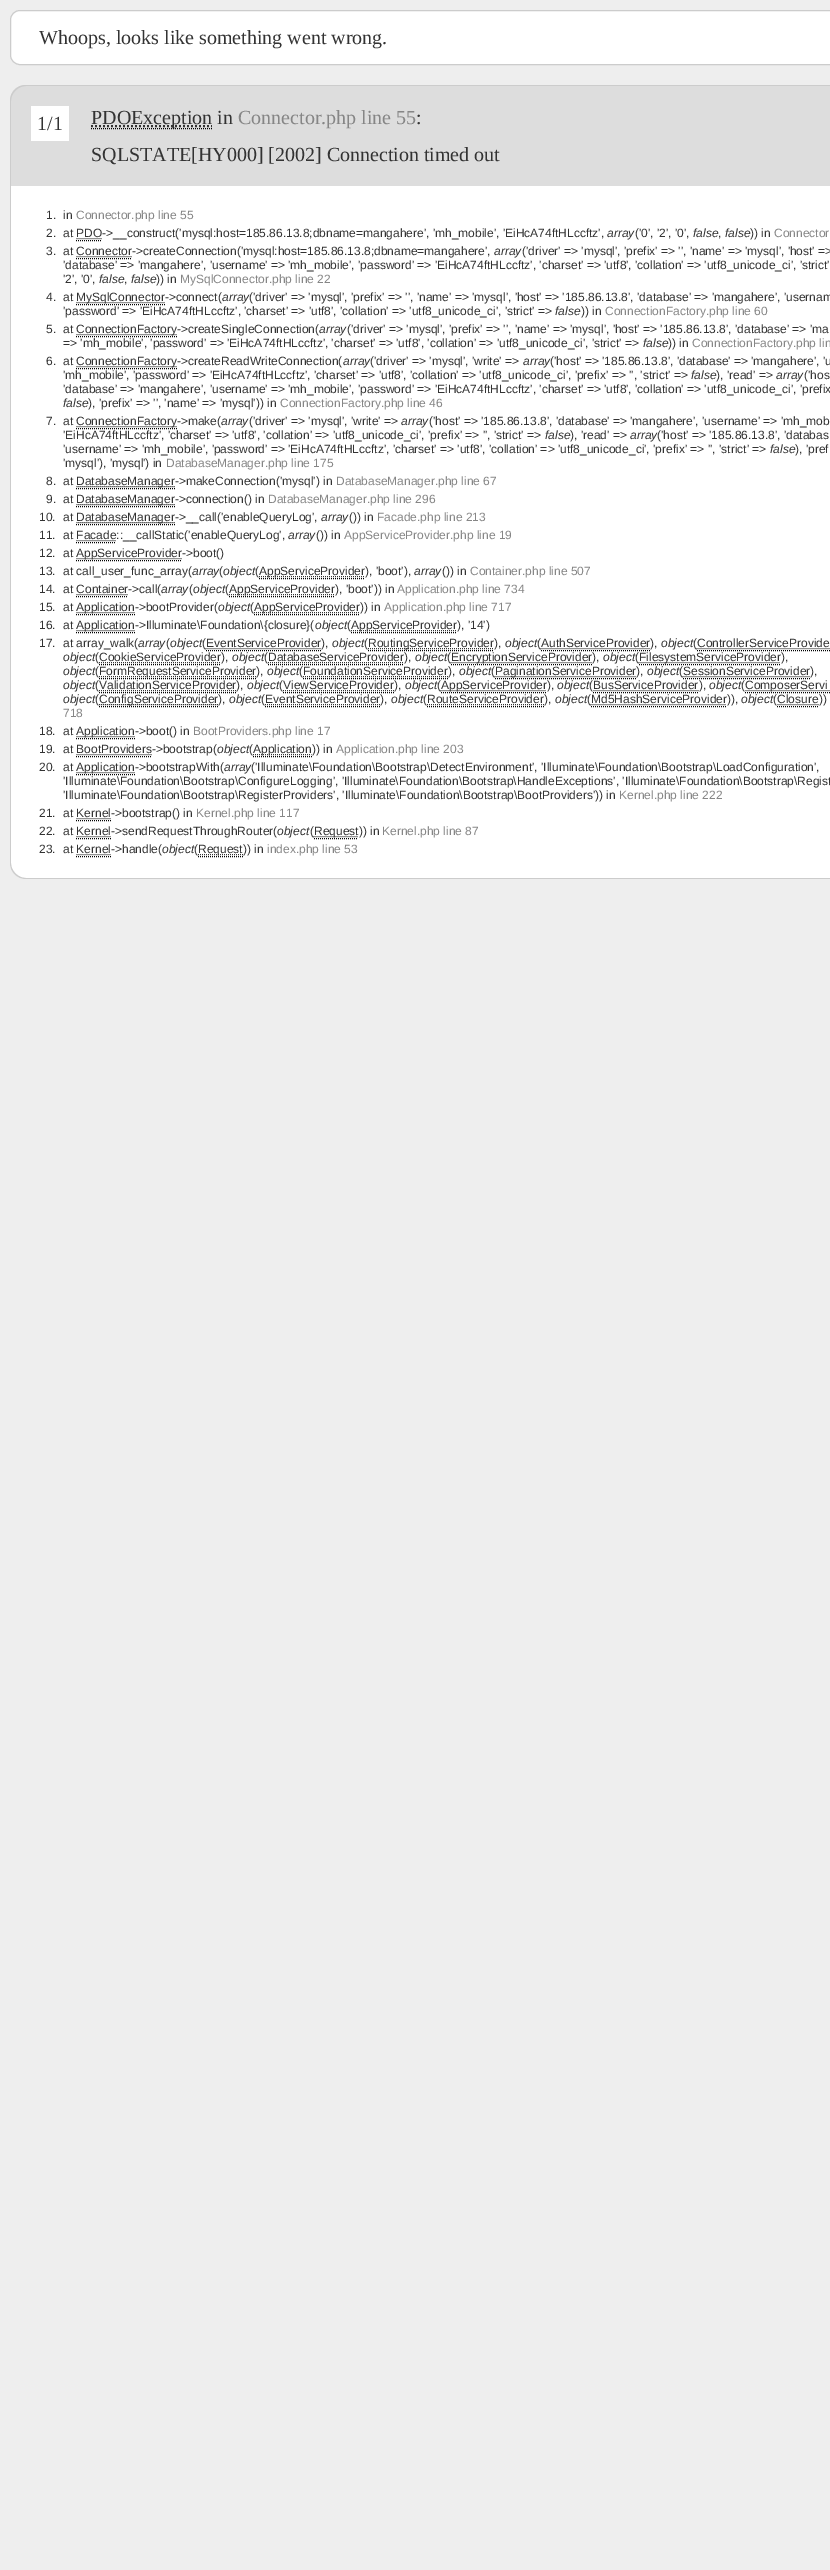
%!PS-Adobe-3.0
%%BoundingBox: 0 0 830 2570
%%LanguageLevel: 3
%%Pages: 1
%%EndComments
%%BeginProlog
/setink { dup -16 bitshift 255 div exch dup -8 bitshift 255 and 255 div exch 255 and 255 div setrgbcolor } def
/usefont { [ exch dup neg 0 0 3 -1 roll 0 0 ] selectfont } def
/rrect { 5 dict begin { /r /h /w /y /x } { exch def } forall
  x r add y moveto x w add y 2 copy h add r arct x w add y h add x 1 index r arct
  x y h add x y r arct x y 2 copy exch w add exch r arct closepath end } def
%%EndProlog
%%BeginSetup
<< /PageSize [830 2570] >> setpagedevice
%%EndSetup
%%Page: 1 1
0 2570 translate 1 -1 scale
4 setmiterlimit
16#EEEEEE setink
0 0 830 2570 rectfill
16#FFFFFF setink
10.5 10.5 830 54 9.5 rrect gsave fill grestore
16#CCCCCC setink
stroke
/LiberationSerif-Regular 20 usefont
16#333333 setink
39 44 moveto (Whoops, looks like something went wrong.) show
16#DDDDDD setink
26 85 moveto 830 85 lineto 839 85 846 92 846 101 curveto 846 186 lineto 10 186 lineto 10 101 lineto 10 92 17 85 26 85 curveto closepath fill
16#CCCCCC setink
26 85 moveto 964 85 lineto 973 85 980 92 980 101 curveto 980 186 lineto 10 186 lineto 10 101 lineto 10 92 17 85 26 85 curveto closepath 26 86 moveto 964 86 lineto 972 86 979 93 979 101 curveto 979 186 lineto 11 186 lineto 11 101 lineto 11 93 18 86 26 86 curveto closepath eofill
16#FFFFFF setink
31 106 38 35 rectfill
16#333333 setink
37 130 moveto (1/1) show
16#000000 setink
[1 1] 0 setdash
91 128.5 moveto 212 128.5 lineto stroke
16#333333 setink
2 setlinewidth
[2 2] 0 setdash
91 126 moveto 212 126 lineto stroke
91 124 moveto (PDOException in) show
16#868686 setink
238 124 moveto (Connector.php line 55) show
16#333333 setink
416 124 moveto (:) show
91 161 moveto (SQLSTATE[HY000] [2002] Connection timed out) show
16#FFFFFF setink
10 186 moveto 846 186 lineto 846 863 lineto 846 872 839 879 830 879 curveto 26 879 lineto 17 879 10 872 10 863 curveto closepath fill
16#CCCCCC setink
10 186 moveto 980 186 lineto 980 863 lineto 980 872 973 879 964 879 curveto 26 879 lineto 17 879 10 872 10 863 curveto closepath 11 186 moveto 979 186 lineto 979 863 lineto 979 871 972 878 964 878 curveto 26 878 lineto 18 878 11 871 11 863 curveto closepath eofill
/LiberationSans-Regular 12 usefont
16#333333 setink
46 219 moveto (1.) show
63 219 moveto (in) show
16#868686 setink
76 219 moveto (Connector.php line 55) show
16#333333 setink
46 237 moveto (2.) show
63 237 moveto (at PDO->__construct\('mysql:host=185.86.13.8;dbname=mangahere', 'mh_mobile', 'EiHcA74ftHLccftz',) show
/LiberationSans-Italic 12 usefont
607 237 moveto (array) show
/LiberationSans-Regular 12 usefont
635 237 moveto (\('0', '2', '0',) show
/LiberationSans-Italic 12 usefont
693 237 moveto (false) show
/LiberationSans-Regular 12 usefont
718 237 moveto (,) show
/LiberationSans-Italic 12 usefont
725 237 moveto (false) show
/LiberationSans-Regular 12 usefont
750 237 moveto (\)\) in) show
16#868686 setink
774 237 moveto (Connector) show
16#333333 setink
1 setlinewidth
[1 1] 0 setdash
76.5 238.5 moveto 102.5 238.5 lineto stroke
16#000000 setink
76 240.5 moveto 102 240.5 lineto stroke
16#333333 setink
46 255 moveto (3.) show
63 255 moveto (at Connector->createConnection\('mysql:host=185.86.13.8;dbname=mangahere',) show
/LiberationSans-Italic 12 usefont
494 255 moveto (array) show
/LiberationSans-Regular 12 usefont
522 255 moveto (\('driver' => 'mysql', 'prefix' => '', 'name' => 'mysql', 'host' =>) show
76.5 256.5 moveto 131.5 256.5 lineto stroke
16#000000 setink
76 258.5 moveto 132 258.5 lineto stroke
16#333333 setink
63 269 moveto ('database' => 'mangahere', 'username' => 'mh_mobile', 'password' => 'EiHcA74ftHLccftz', 'charset' => 'utf8', 'collation' => 'utf8_unicode_ci', 'strict') show
63 283 moveto ('2', '0',) show
/LiberationSans-Italic 12 usefont
99 283 moveto (false) show
/LiberationSans-Regular 12 usefont
124 283 moveto (,) show
/LiberationSans-Italic 12 usefont
131 283 moveto (false) show
/LiberationSans-Regular 12 usefont
156 283 moveto (\)\) in) show
16#868686 setink
180 283 moveto (MySqlConnector.php line 22) show
16#333333 setink
46 301 moveto (4.) show
63 301 moveto (at) show
76.5 302.5 moveto 165 302.5 lineto stroke
76 301 moveto (MySqlConnector->connect\() show
16#000000 setink
76 304.5 moveto 165 304.5 lineto stroke
/LiberationSans-Italic 12 usefont
16#333333 setink
222 301 moveto (array) show
/LiberationSans-Regular 12 usefont
249 301 moveto (\('driver' => 'mysql', 'prefix' => '', 'name' => 'mysql', 'host' => '185.86.13.8', 'database' => 'mangahere', 'usernam) show
63 315 moveto ('password' => 'EiHcA74ftHLccftz', 'charset' => 'utf8', 'collation' => 'utf8_unicode_ci', 'strict' =>) show
/LiberationSans-Italic 12 usefont
555 315 moveto (false) show
/LiberationSans-Regular 12 usefont
581 315 moveto (\)\) in) show
16#868686 setink
605 315 moveto (ConnectionFactory.php line 60) show
16#333333 setink
46 333 moveto (5.) show
63 333 moveto (at) show
76.5 334.5 moveto 177 334.5 lineto stroke
76 333 moveto (ConnectionFactory->createSingleConnection\() show
16#000000 setink
76 336.5 moveto 177 336.5 lineto stroke
/LiberationSans-Italic 12 usefont
16#333333 setink
319 333 moveto (array) show
/LiberationSans-Regular 12 usefont
347 333 moveto (\('driver' => 'mysql', 'prefix' => '', 'name' => 'mysql', 'host' => '185.86.13.8', 'database' => 'ma) show
63 347 moveto (=> 'mh_mobile', 'password' => 'EiHcA74ftHLccftz', 'charset' => 'utf8', 'collation' => 'utf8_unicode_ci', 'strict' =>) show
/LiberationSans-Italic 12 usefont
643 347 moveto (false) show
/LiberationSans-Regular 12 usefont
668 347 moveto (\)\) in) show
16#868686 setink
692 347 moveto (ConnectionFactory.php lin) show
16#333333 setink
46 365 moveto (6.) show
63 365 moveto (at) show
76.5 366.5 moveto 177 366.5 lineto stroke
76 365 moveto (ConnectionFactory->createReadWriteConnection\() show
16#000000 setink
76 368.5 moveto 177 368.5 lineto stroke
/LiberationSans-Italic 12 usefont
16#333333 setink
343 365 moveto (array) show
/LiberationSans-Regular 12 usefont
370 365 moveto (\('driver' => 'mysql', 'write' =>) show
/LiberationSans-Italic 12 usefont
523 365 moveto (array) show
/LiberationSans-Regular 12 usefont
550 365 moveto (\('host' => '185.86.13.8', 'database' => 'mangahere', 'u) show
63 379 moveto ('mh_mobile', 'password' => 'EiHcA74ftHLccftz', 'charset' => 'utf8', 'collation' => 'utf8_unicode_ci', 'prefix' => '', 'strict' =>) show
/LiberationSans-Italic 12 usefont
691 379 moveto (false) show
/LiberationSans-Regular 12 usefont
716 379 moveto (\), 'read' =>) show
/LiberationSans-Italic 12 usefont
776 379 moveto (array) show
/LiberationSans-Regular 12 usefont
804 379 moveto (\('hos) show
63 393 moveto ('database' => 'mangahere', 'username' => 'mh_mobile', 'password' => 'EiHcA74ftHLccftz', 'charset' => 'utf8', 'collation' => 'utf8_unicode_ci', 'prefix) show
/LiberationSans-Italic 12 usefont
63 407 moveto (false) show
/LiberationSans-Regular 12 usefont
88 407 moveto (\), 'prefix' => '', 'name' => 'mysql'\)\) in) show
16#868686 setink
280 407 moveto (ConnectionFactory.php line 46) show
16#333333 setink
46 425 moveto (7.) show
63 425 moveto (at) show
76.5 426.5 moveto 177 426.5 lineto stroke
76 425 moveto (ConnectionFactory->make\() show
16#000000 setink
76 428.5 moveto 177 428.5 lineto stroke
/LiberationSans-Italic 12 usefont
16#333333 setink
221 425 moveto (array) show
/LiberationSans-Regular 12 usefont
249 425 moveto (\('driver' => 'mysql', 'write' =>) show
/LiberationSans-Italic 12 usefont
401 425 moveto (array) show
/LiberationSans-Regular 12 usefont
429 425 moveto (\('host' => '185.86.13.8', 'database' => 'mangahere', 'username' => 'mh_mob) show
63 439 moveto ('EiHcA74ftHLccftz', 'charset' => 'utf8', 'collation' => 'utf8_unicode_ci', 'prefix' => '', 'strict' =>) show
/LiberationSans-Italic 12 usefont
545 439 moveto (false) show
/LiberationSans-Regular 12 usefont
570 439 moveto (\), 'read' =>) show
/LiberationSans-Italic 12 usefont
630 439 moveto (array) show
/LiberationSans-Regular 12 usefont
657 439 moveto (\('host' => '185.86.13.8', 'databas) show
63 453 moveto ('username' => 'mh_mobile', 'password' => 'EiHcA74ftHLccftz', 'charset' => 'utf8', 'collation' => 'utf8_unicode_ci', 'prefix' => '', 'strict' =>) show
/LiberationSans-Italic 12 usefont
770 453 moveto (false) show
/LiberationSans-Regular 12 usefont
795 453 moveto (\), 'pref) show
63 467 moveto ('mysql'\), 'mysql'\) in) show
16#868686 setink
166 467 moveto (DatabaseManager.php line 175) show
16#333333 setink
46 485 moveto (8.) show
63 485 moveto (at) show
76.5 486.5 moveto 175 486.5 lineto stroke
76 485 moveto (DatabaseManager->makeConnection\('mysql'\) in) show
16#000000 setink
76 488.5 moveto 175 488.5 lineto stroke
16#868686 setink
336 485 moveto (DatabaseManager.php line 67) show
16#333333 setink
46 503 moveto (9.) show
63 503 moveto (at) show
76.5 504.5 moveto 175 504.5 lineto stroke
76 503 moveto (DatabaseManager->connection\(\) in) show
16#000000 setink
76 506.5 moveto 175 506.5 lineto stroke
16#868686 setink
268 503 moveto (DatabaseManager.php line 296) show
16#333333 setink
39 521 moveto (10.) show
63 521 moveto (at) show
76.5 522.5 moveto 175 522.5 lineto stroke
76 521 moveto (DatabaseManager->__call\('enableQueryLog',) show
16#000000 setink
76 524.5 moveto 175 524.5 lineto stroke
/LiberationSans-Italic 12 usefont
16#333333 setink
321 521 moveto (array) show
/LiberationSans-Regular 12 usefont
349 521 moveto (\(\)\) in) show
16#868686 setink
377 521 moveto (Facade.php line 213) show
16#333333 setink
39 539 moveto (11.) show
63 539 moveto (at Facade::__callStatic\('enableQueryLog',) show
/LiberationSans-Italic 12 usefont
288 539 moveto (array) show
/LiberationSans-Regular 12 usefont
316 539 moveto (\(\)\) in) show
16#868686 setink
344 539 moveto (AppServiceProvider.php line 19) show
16#333333 setink
76.5 540.5 moveto 116.5 540.5 lineto stroke
16#000000 setink
76 542.5 moveto 116 542.5 lineto stroke
16#333333 setink
39 557 moveto (12.) show
63 557 moveto (at) show
76.5 558.5 moveto 182.5 558.5 lineto stroke
76 557 moveto (AppServiceProvider->boot\(\)) show
16#000000 setink
76 560.5 moveto 182 560.5 lineto stroke
16#333333 setink
39 575 moveto (13.) show
63 575 moveto (at call_user_func_array\() show
/LiberationSans-Italic 12 usefont
192 575 moveto (array) show
/LiberationSans-Regular 12 usefont
219 575 moveto (\() show
/LiberationSans-Italic 12 usefont
223 575 moveto (object) show
/LiberationSans-Regular 12 usefont
255 575 moveto (\() show
259 576.5 moveto 365 576.5 lineto stroke
259 575 moveto (AppServiceProvider\), 'boot'\),) show
16#000000 setink
259 578.5 moveto 365 578.5 lineto stroke
/LiberationSans-Italic 12 usefont
16#333333 setink
414 575 moveto (array) show
/LiberationSans-Regular 12 usefont
442 575 moveto (\(\)\) in) show
16#868686 setink
470 575 moveto (Container.php line 507) show
16#333333 setink
39 593 moveto (14.) show
63 593 moveto (at Container->call\() show
/LiberationSans-Italic 12 usefont
161 593 moveto (array) show
/LiberationSans-Regular 12 usefont
189 593 moveto (\() show
/LiberationSans-Italic 12 usefont
193 593 moveto (object) show
/LiberationSans-Regular 12 usefont
225 593 moveto (\() show
229 594.5 moveto 335 594.5 lineto stroke
229 593 moveto (AppServiceProvider\), 'boot'\)\) in) show
16#000000 setink
229 596.5 moveto 335 596.5 lineto stroke
16#868686 setink
397 593 moveto (Application.php line 734) show
16#333333 setink
76.5 594.5 moveto 128.5 594.5 lineto stroke
16#000000 setink
76 596.5 moveto 128 596.5 lineto stroke
16#333333 setink
39 611 moveto (15.) show
63 611 moveto (at) show
76.5 612.5 moveto 135 612.5 lineto stroke
76 611 moveto (Application->bootProvider\() show
16#000000 setink
76 614.5 moveto 135 614.5 lineto stroke
/LiberationSans-Italic 12 usefont
16#333333 setink
218 611 moveto (object) show
/LiberationSans-Regular 12 usefont
250 611 moveto (\() show
254 612.5 moveto 360 612.5 lineto stroke
254 611 moveto (AppServiceProvider\)\) in) show
16#000000 setink
254 614.5 moveto 360 614.5 lineto stroke
16#868686 setink
384 611 moveto (Application.php line 717) show
16#333333 setink
39 629 moveto (16.) show
63 629 moveto (at) show
76.5 630.5 moveto 135 630.5 lineto stroke
76 629 moveto (Application->Illuminate\\Foundation\\{closure}\() show
16#000000 setink
76 632.5 moveto 135 632.5 lineto stroke
/LiberationSans-Italic 12 usefont
16#333333 setink
315 629 moveto (object) show
/LiberationSans-Regular 12 usefont
347 629 moveto (\() show
351 630.5 moveto 457 630.5 lineto stroke
351 629 moveto (AppServiceProvider\), '14'\)) show
16#000000 setink
351 632.5 moveto 457 632.5 lineto stroke
16#333333 setink
39 647 moveto (17.) show
63 647 moveto (at array_walk\() show
/LiberationSans-Italic 12 usefont
138 647 moveto (array) show
/LiberationSans-Regular 12 usefont
166 647 moveto (\() show
/LiberationSans-Italic 12 usefont
170 647 moveto (object) show
/LiberationSans-Regular 12 usefont
202 647 moveto (\(EventServiceProvider\),) show
/LiberationSans-Italic 12 usefont
332 647 moveto (object) show
/LiberationSans-Regular 12 usefont
364 647 moveto (\() show
368 648.5 moveto 494 648.5 lineto stroke
368 647 moveto (RoutingServiceProvider\),) show
16#000000 setink
368 650.5 moveto 494 650.5 lineto stroke
/LiberationSans-Italic 12 usefont
16#333333 setink
505 647 moveto (object) show
/LiberationSans-Regular 12 usefont
537 647 moveto (\(AuthServiceProvider\),) show
/LiberationSans-Italic 12 usefont
661 647 moveto (object) show
/LiberationSans-Regular 12 usefont
693 647 moveto (\(ControllerServiceProvide) show
205.5 648.5 moveto 321 648.5 lineto stroke
540.5 648.5 moveto 650 648.5 lineto stroke
696.5 648.5 moveto 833.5 648.5 lineto stroke
16#000000 setink
206 650.5 moveto 321 650.5 lineto stroke
541 650.5 moveto 650 650.5 lineto stroke
697 650.5 moveto 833 650.5 lineto stroke
/LiberationSans-Italic 12 usefont
16#333333 setink
63 661 moveto (object) show
/LiberationSans-Regular 12 usefont
95 661 moveto (\(CookieServiceProvider\),) show
/LiberationSans-Italic 12 usefont
232 661 moveto (object) show
/LiberationSans-Regular 12 usefont
264 661 moveto (\(DatabaseServiceProvider\),) show
/LiberationSans-Italic 12 usefont
415 661 moveto (object) show
/LiberationSans-Regular 12 usefont
447 661 moveto (\() show
450.5 662.5 moveto 592 662.5 lineto stroke
451 661 moveto (EncryptionServiceProvider\),) show
16#000000 setink
451 664.5 moveto 592 664.5 lineto stroke
/LiberationSans-Italic 12 usefont
16#333333 setink
603 661 moveto (object) show
/LiberationSans-Regular 12 usefont
635 661 moveto (\() show
638.5 662.5 moveto 780.5 662.5 lineto stroke
639 661 moveto (FilesystemServiceProvider\),) show
16#000000 setink
639 664.5 moveto 781 664.5 lineto stroke
16#333333 setink
99 662.5 moveto 221 662.5 lineto stroke
268 662.5 moveto 404 662.5 lineto stroke
16#000000 setink
99 664.5 moveto 221 664.5 lineto stroke
268 664.5 moveto 404 664.5 lineto stroke
/LiberationSans-Italic 12 usefont
16#333333 setink
63 675 moveto (object) show
/LiberationSans-Regular 12 usefont
95 675 moveto (\() show
99 676.5 moveto 256.5 676.5 lineto stroke
99 675 moveto (FormRequestServiceProvider\),) show
16#000000 setink
99 678.5 moveto 256 678.5 lineto stroke
/LiberationSans-Italic 12 usefont
16#333333 setink
267 675 moveto (object) show
/LiberationSans-Regular 12 usefont
299 675 moveto (\(FoundationServiceProvider\),) show
/LiberationSans-Italic 12 usefont
459 675 moveto (object) show
/LiberationSans-Regular 12 usefont
491 675 moveto (\() show
494.5 676.5 moveto 636 676.5 lineto stroke
495 675 moveto (PaginationServiceProvider\),) show
16#000000 setink
495 678.5 moveto 636 678.5 lineto stroke
/LiberationSans-Italic 12 usefont
16#333333 setink
647 675 moveto (object) show
/LiberationSans-Regular 12 usefont
679 675 moveto (\(SessionServiceProvider\),) show
303 676.5 moveto 448 676.5 lineto stroke
682.5 676.5 moveto 810 676.5 lineto stroke
16#000000 setink
303 678.5 moveto 448 678.5 lineto stroke
683 678.5 moveto 810 678.5 lineto stroke
/LiberationSans-Italic 12 usefont
16#333333 setink
63 689 moveto (object) show
/LiberationSans-Regular 12 usefont
95 689 moveto (\(ValidationServiceProvider\),) show
/LiberationSans-Italic 12 usefont
247 689 moveto (object) show
/LiberationSans-Regular 12 usefont
279 689 moveto (\(ViewServiceProvider) show
283 690.5 moveto 394 690.5 lineto stroke
394 689 moveto (\),) show
/LiberationSans-Italic 12 usefont
405 689 moveto (object) show
/LiberationSans-Regular 12 usefont
437 689 moveto (\() show
440.5 690.5 moveto 546.5 690.5 lineto stroke
441 689 moveto (AppServiceProvider\),) show
16#000000 setink
441 692.5 moveto 547 692.5 lineto stroke
/LiberationSans-Italic 12 usefont
16#333333 setink
557 689 moveto (object) show
/LiberationSans-Regular 12 usefont
589 689 moveto (\(BusServiceProvider) show
593.5 690.5 moveto 698.5 690.5 lineto stroke
699 689 moveto (\),) show
/LiberationSans-Italic 12 usefont
709 689 moveto (object) show
/LiberationSans-Regular 12 usefont
741 689 moveto (\() show
745.5 690.5 moveto 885.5 690.5 lineto stroke
745 689 moveto (ComposerServi) show
16#000000 setink
745 692.5 moveto 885 692.5 lineto stroke
16#333333 setink
99 690.5 moveto 236.5 690.5 lineto stroke
16#000000 setink
99 692.5 moveto 236 692.5 lineto stroke
283 692.5 moveto 394 692.5 lineto stroke
593 692.5 moveto 699 692.5 lineto stroke
/LiberationSans-Italic 12 usefont
16#333333 setink
63 703 moveto (object) show
/LiberationSans-Regular 12 usefont
95 703 moveto (\() show
99 704.5 moveto 218.5 704.5 lineto stroke
99 703 moveto (ConfigServiceProvider\),) show
16#000000 setink
99 706.5 moveto 218 706.5 lineto stroke
/LiberationSans-Italic 12 usefont
16#333333 setink
229 703 moveto (object) show
/LiberationSans-Regular 12 usefont
261 703 moveto (\(EventServiceProvider\),) show
/LiberationSans-Italic 12 usefont
391 703 moveto (object) show
/LiberationSans-Regular 12 usefont
423 703 moveto (\(RouteServiceProvider\),) show
/LiberationSans-Italic 12 usefont
555 703 moveto (object) show
/LiberationSans-Regular 12 usefont
587 703 moveto (\(Md5HashServiceProvider\)\),) show
/LiberationSans-Italic 12 usefont
741 703 moveto (object) show
/LiberationSans-Regular 12 usefont
773 703 moveto (\(Closure) show
777.5 704.5 moveto 819 704.5 lineto stroke
819 703 moveto (\)\)) show
265 704.5 moveto 380.5 704.5 lineto stroke
427 704.5 moveto 544 704.5 lineto stroke
590.5 704.5 moveto 726.5 704.5 lineto stroke
16#000000 setink
265 706.5 moveto 381 706.5 lineto stroke
427 706.5 moveto 544 706.5 lineto stroke
591 706.5 moveto 727 706.5 lineto stroke
777 706.5 moveto 819 706.5 lineto stroke
16#868686 setink
63 717 moveto (718) show
16#333333 setink
39 735 moveto (18.) show
63 735 moveto (at) show
76.5 736.5 moveto 135 736.5 lineto stroke
76 735 moveto (Application->boot\(\) in) show
16#000000 setink
76 738.5 moveto 135 738.5 lineto stroke
16#868686 setink
193 735 moveto (BootProviders.php line 17) show
16#333333 setink
39 753 moveto (19.) show
63 753 moveto (at BootProviders->bootstrap\() show
/LiberationSans-Italic 12 usefont
217 753 moveto (object) show
/LiberationSans-Regular 12 usefont
249 753 moveto (\() show
253 754.5 moveto 311.5 754.5 lineto stroke
253 753 moveto (Application\)\) in) show
16#000000 setink
253 756.5 moveto 312 756.5 lineto stroke
16#868686 setink
336 753 moveto (Application.php line 203) show
16#333333 setink
76.5 754.5 moveto 151.5 754.5 lineto stroke
16#000000 setink
76 756.5 moveto 152 756.5 lineto stroke
16#333333 setink
39 771 moveto (20.) show
63 771 moveto (at) show
76.5 772.5 moveto 135 772.5 lineto stroke
76 771 moveto (Application->bootstrapWith\() show
16#000000 setink
76 774.5 moveto 135 774.5 lineto stroke
/LiberationSans-Italic 12 usefont
16#333333 setink
224 771 moveto (array) show
/LiberationSans-Regular 12 usefont
[
    [(\('Illuminate\\Foundation\\Bootstrap\\DetectEnvironment', 'Illuminate\\Foundation\\Bootstrap\\LoadConfiguration',) 251 771]
    [('Illuminate\\Foundation\\Bootstrap\\ConfigureLogging', 'Illuminate\\Foundation\\Bootstrap\\HandleExceptions', 'Illuminate\\Foundation\\Bootstrap\\Regist) 63 785]
    [('Illuminate\\Foundation\\Bootstrap\\RegisterProviders', 'Illuminate\\Foundation\\Bootstrap\\BootProviders'\)\) in) 63 799]
] { aload pop moveto show } forall
16#868686 setink
619 799 moveto (Kernel.php line 222) show
16#333333 setink
39 817 moveto (21.) show
63 817 moveto (at Kernel->bootstrap\(\) in) show
16#868686 setink
196 817 moveto (Kernel.php line 117) show
16#333333 setink
76.5 818.5 moveto 111 818.5 lineto stroke
16#000000 setink
76 820.5 moveto 111 820.5 lineto stroke
16#333333 setink
39 835 moveto (22.) show
63 835 moveto (at Kernel->sendRequestThroughRouter\() show
/LiberationSans-Italic 12 usefont
277 835 moveto (object) show
/LiberationSans-Regular 12 usefont
310 835 moveto (\() show
313.5 836.5 moveto 358 836.5 lineto stroke
314 835 moveto (Request\)\) in) show
16#000000 setink
314 838.5 moveto 358 838.5 lineto stroke
16#868686 setink
382 835 moveto (Kernel.php line 87) show
16#333333 setink
76.5 836.5 moveto 111 836.5 lineto stroke
16#000000 setink
76 838.5 moveto 111 838.5 lineto stroke
16#333333 setink
39 853 moveto (23.) show
63 853 moveto (at Kernel->handle\() show
/LiberationSans-Italic 12 usefont
162 853 moveto (object) show
/LiberationSans-Regular 12 usefont
194 853 moveto (\() show
198 854.5 moveto 243 854.5 lineto stroke
198 853 moveto (Request\)\) in) show
16#000000 setink
198 856.5 moveto 243 856.5 lineto stroke
16#868686 setink
267 853 moveto (index.php line 53) show
16#333333 setink
76.5 854.5 moveto 111 854.5 lineto stroke
16#000000 setink
76 856.5 moveto 111 856.5 lineto stroke
showpage
%%EOF
